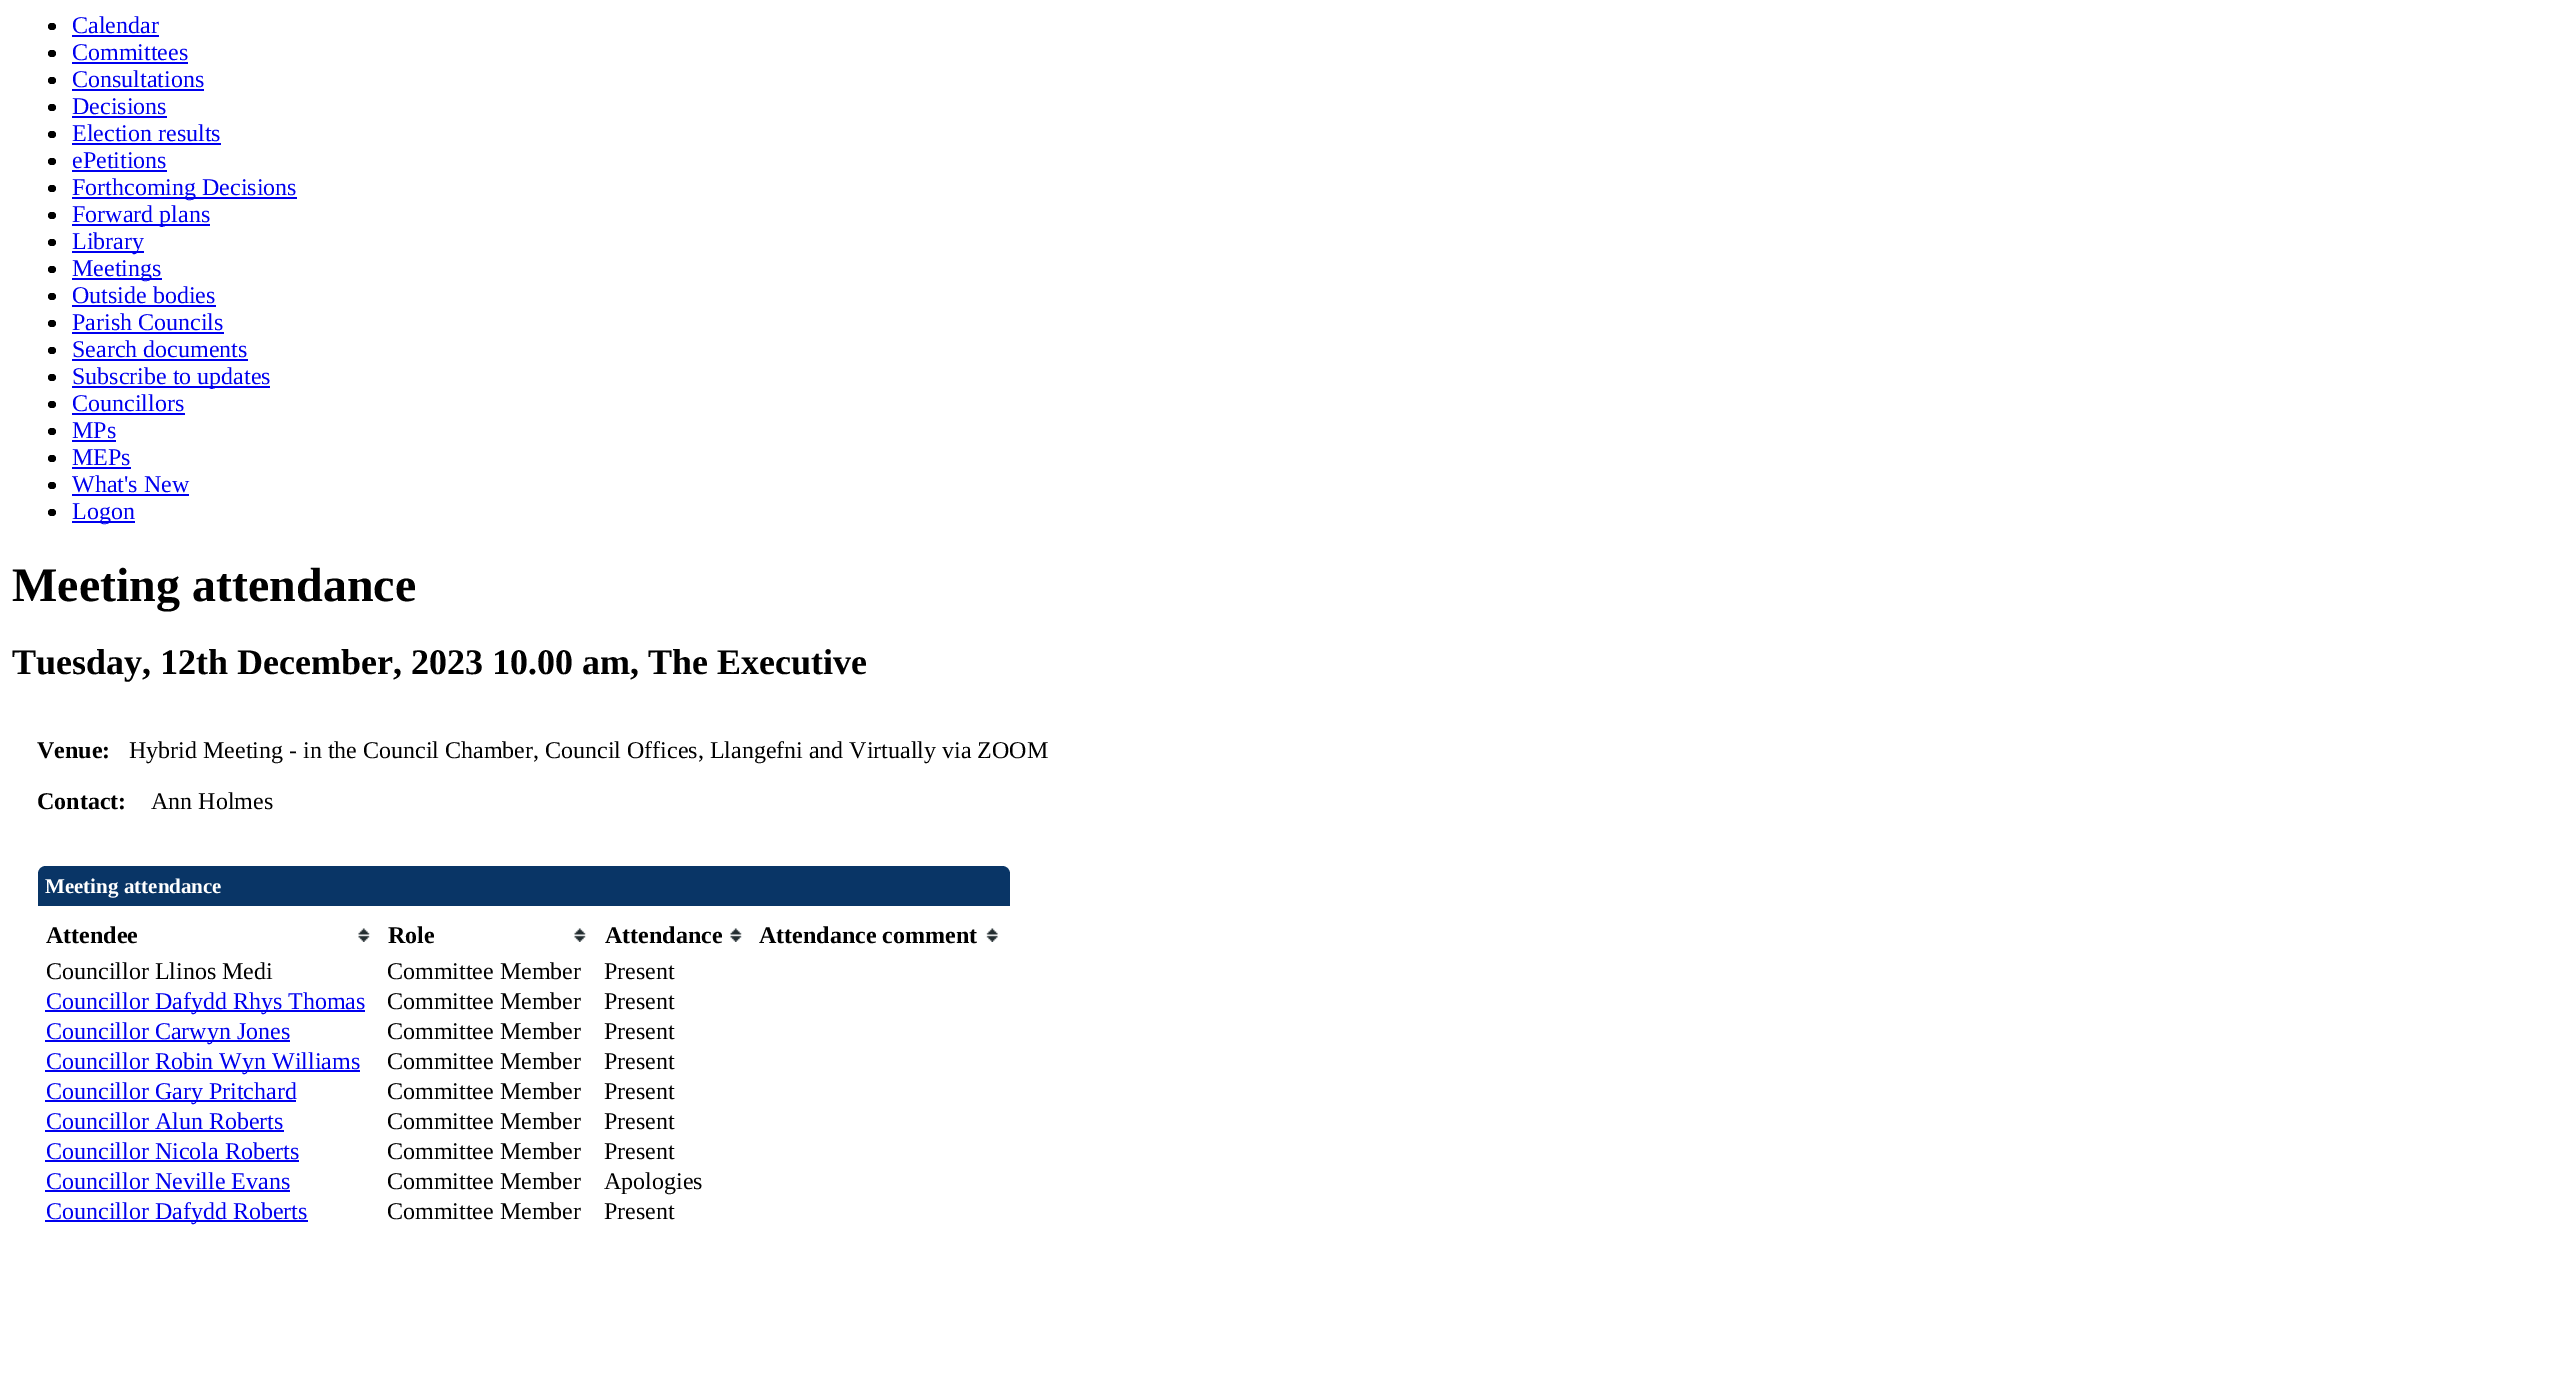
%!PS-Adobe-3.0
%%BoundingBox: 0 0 2550 1399
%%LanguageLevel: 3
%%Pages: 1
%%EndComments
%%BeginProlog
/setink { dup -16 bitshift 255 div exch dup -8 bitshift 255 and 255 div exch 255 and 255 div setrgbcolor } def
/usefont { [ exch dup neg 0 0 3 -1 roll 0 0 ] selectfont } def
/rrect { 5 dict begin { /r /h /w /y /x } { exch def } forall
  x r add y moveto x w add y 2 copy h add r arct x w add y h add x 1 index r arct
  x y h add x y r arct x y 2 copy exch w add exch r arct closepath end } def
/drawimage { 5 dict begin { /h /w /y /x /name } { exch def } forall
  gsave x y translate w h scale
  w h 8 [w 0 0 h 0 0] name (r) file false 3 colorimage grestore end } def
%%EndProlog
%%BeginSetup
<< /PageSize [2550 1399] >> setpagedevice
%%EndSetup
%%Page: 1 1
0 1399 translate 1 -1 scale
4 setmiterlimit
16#FFFFFF setink
0 0 2550 1399 rectfill
16#000000 setink
48 23 8 7 3.5 rrect fill
/LiberationSerif-Regular 24 usefont
16#0000EE setink
72 33 moveto (Calendar) show
72 35 87 2 rectfill
16#000000 setink
48 50 8 7 3.5 rrect fill
16#0000EE setink
72 60 moveto (Committees) show
72 62 116 2 rectfill
16#000000 setink
48 77 8 7 3.5 rrect fill
16#0000EE setink
72 87 moveto (Consultations) show
72 89 132 2 rectfill
16#000000 setink
48 104 8 7 3.5 rrect fill
16#0000EE setink
72 114 moveto (Decisions) show
72 116 95 2 rectfill
16#000000 setink
48 131 8 7 3.5 rrect fill
16#0000EE setink
72 141 moveto (Election results) show
72 143 149 2 rectfill
16#000000 setink
48 158 8 7 3.5 rrect fill
16#0000EE setink
72 168 moveto (ePetitions) show
72 170 95 2 rectfill
16#000000 setink
48 185 8 7 3.5 rrect fill
16#0000EE setink
72 197 225 2 rectfill
72 195 moveto (Forthcoming Decisions) show
16#000000 setink
48 212 8 7 3.5 rrect fill
16#0000EE setink
72 224 138 2 rectfill
72 222 moveto (Forward plans) show
16#000000 setink
48 239 8 7 3.5 rrect fill
16#0000EE setink
72 251 72 2 rectfill
72 249 moveto (Library) show
16#000000 setink
48 266 8 7 3.5 rrect fill
16#0000EE setink
72 278 90 2 rectfill
72 276 moveto (Meetings) show
16#000000 setink
48 293 8 7 3.5 rrect fill
16#0000EE setink
72 303 moveto (Outside bodies) show
72 305 144 2 rectfill
16#000000 setink
48 320 8 7 3.5 rrect fill
16#0000EE setink
72 330 moveto (Parish Councils) show
72 332 152 2 rectfill
16#000000 setink
48 347 8 7 3.5 rrect fill
16#0000EE setink
72 357 moveto (Search documents) show
72 359 176 2 rectfill
16#000000 setink
48 374 8 7 3.5 rrect fill
16#0000EE setink
72 386 198 2 rectfill
72 384 moveto (Subscribe to updates) show
16#000000 setink
48 401 8 7 3.5 rrect fill
16#0000EE setink
72 411 moveto (Councillors) show
72 413 113 2 rectfill
16#000000 setink
48 428 8 7 3.5 rrect fill
16#0000EE setink
72 438 moveto (MPs) show
72 440 44 2 rectfill
16#000000 setink
48 455 8 7 3.5 rrect fill
16#0000EE setink
72 465 moveto (MEPs) show
72 467 59 2 rectfill
16#000000 setink
48 482 8 7 3.5 rrect fill
16#0000EE setink
72 492 moveto (What's New) show
72 494 117 2 rectfill
16#000000 setink
48 509 8 7 3.5 rrect fill
16#0000EE setink
72 521 63 2 rectfill
72 519 moveto (Logon) show
/LiberationSerif-Bold 48 usefont
16#000000 setink
12 601 moveto (Meeting attendance) show
/LiberationSerif-Bold 36 usefont
12 674 moveto (Tuesday, 12th December, 2023 10.00 am, The Executive) show
/LiberationSerif-Bold 24 usefont
37 758 moveto (Venue:) show
/LiberationSerif-Regular 24 usefont
129 758 moveto (Hybrid Meeting - in the Council Chamber, Council Offices, Llangefni and Virtually via ZOOM) show
/LiberationSerif-Bold 24 usefont
37 809 moveto (Contact:) show
/LiberationSerif-Regular 24 usefont
151 809 moveto (Ann Holmes) show
16#093566 setink
46 866 moveto 1002 866 lineto 1006.5 866 1010 869.5 1010 874 curveto 1010 906 lineto 38 906 lineto 38 874 lineto 38 869.5 41.5 866 46 866 curveto closepath fill
/LiberationSerif-Bold 21 usefont
16#FFFFFF setink
45 893 moveto (Meeting attendance) show
(img1.raw) 358 928 12 14 drawimage
/LiberationSerif-Bold 24 usefont
16#000000 setink
46 943 moveto (Attendee) show
(img1.raw) 574 928 12 14 drawimage
388 943 moveto (Role) show
(img1.raw) 730 928 12 14 drawimage
605 943 moveto (Attendance) show
(img2.raw) 986 928 12 14 drawimage
759 943 moveto (Attendance comment) show
/LiberationSerif-Regular 24 usefont
[
    [(Councillor Llinos Medi) 46 979]
    [(Committee Member) 387 979]
    [(Present) 604 979]
] { aload pop moveto show } forall
16#0000EE setink
45 1010 320 2 rectfill
46 1009 moveto (Councillor Dafydd Rhys Thomas) show
16#000000 setink
387 1009 moveto (Committee Member) show
604 1009 moveto (Present) show
16#0000EE setink
45 1040 245 2 rectfill
46 1039 moveto (Councillor Carwyn Jones) show
16#000000 setink
387 1039 moveto (Committee Member) show
604 1039 moveto (Present) show
16#0000EE setink
45 1070 315 2 rectfill
46 1069 moveto (Councillor Robin Wyn Williams) show
16#000000 setink
387 1069 moveto (Committee Member) show
604 1069 moveto (Present) show
16#0000EE setink
45 1100 251 2 rectfill
46 1099 moveto (Councillor Gary Pritchard) show
16#000000 setink
387 1099 moveto (Committee Member) show
604 1099 moveto (Present) show
16#0000EE setink
46 1129 moveto (Councillor Alun Roberts) show
45 1130 239 2 rectfill
16#000000 setink
387 1129 moveto (Committee Member) show
604 1129 moveto (Present) show
16#0000EE setink
46 1159 moveto (Councillor Nicola Roberts) show
45 1160 254 2 rectfill
16#000000 setink
387 1159 moveto (Committee Member) show
604 1159 moveto (Present) show
16#0000EE setink
46 1189 moveto (Councillor Neville Evans) show
45 1190 245 2 rectfill
16#000000 setink
387 1189 moveto (Committee Member) show
604 1189 moveto (Apologies) show
16#0000EE setink
45 1220 263 2 rectfill
46 1219 moveto (Councillor Dafydd Roberts) show
16#000000 setink
387 1219 moveto (Committee Member) show
604 1219 moveto (Present) show
showpage
%%EOF
